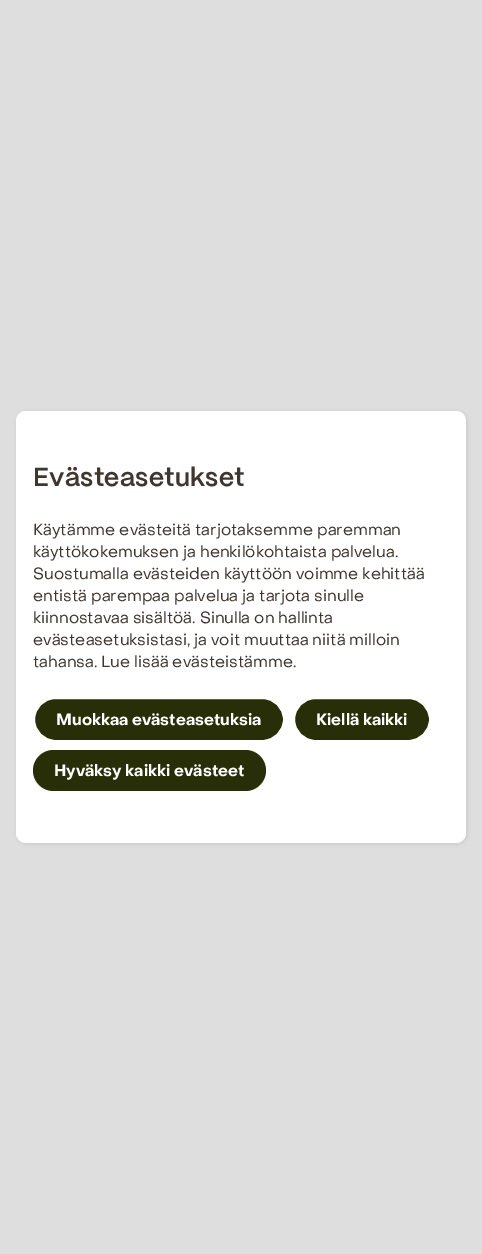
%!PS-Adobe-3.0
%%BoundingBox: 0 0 482 1254
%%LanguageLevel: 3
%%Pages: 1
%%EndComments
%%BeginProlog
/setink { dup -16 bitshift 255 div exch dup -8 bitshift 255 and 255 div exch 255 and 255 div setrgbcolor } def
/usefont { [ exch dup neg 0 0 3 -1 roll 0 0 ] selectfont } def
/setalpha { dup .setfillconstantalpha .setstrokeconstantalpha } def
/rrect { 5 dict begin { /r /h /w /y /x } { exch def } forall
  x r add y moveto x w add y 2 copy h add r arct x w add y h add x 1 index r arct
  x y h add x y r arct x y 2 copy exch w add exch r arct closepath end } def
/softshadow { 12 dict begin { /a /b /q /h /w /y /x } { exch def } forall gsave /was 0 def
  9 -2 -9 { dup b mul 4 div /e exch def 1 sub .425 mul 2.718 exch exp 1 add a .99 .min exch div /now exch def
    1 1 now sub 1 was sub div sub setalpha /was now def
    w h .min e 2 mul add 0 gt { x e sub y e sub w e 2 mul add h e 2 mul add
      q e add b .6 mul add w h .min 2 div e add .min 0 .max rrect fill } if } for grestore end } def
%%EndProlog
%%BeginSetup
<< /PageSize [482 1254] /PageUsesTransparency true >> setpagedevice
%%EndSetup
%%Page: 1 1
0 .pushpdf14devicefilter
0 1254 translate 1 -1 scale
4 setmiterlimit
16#DEDEDE setink
0 0 482 1254 rectfill
16#000000 setink
17 412 450 432 10 2 0.1 softshadow
16#FFFFFF setink
16 411 450 432 10 rrect fill
/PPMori-SemiBold 26 usefont
16#3F362F setink
33 486 moveto 0.3 0 (Evästeasetukset) ashow
/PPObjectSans-Regular 16 usefont
[
    [(Käytämme evästeitä tarjotaksemme paremman) 33 535]
    [(käyttökokemuksen ja henkilökohtaista palvelua.) 33 557]
    [(Suostumalla evästeiden käyttöön voimme kehittää) 33 579]
    [(entistä parempaa palvelua ja tarjota sinulle) 33 601]
    [(kiinnostavaa sisältöä. Sinulla on hallinta) 33 623]
    [(evästeasetuksistasi, ja voit muuttaa niitä milloin) 33 645]
    [(tahansa. Lue lisää evästeistämme.) 33 667]
] { aload pop moveto show } forall
16#282F08 setink
34 698 250 43 21.5 rrect gsave fill grestore
16#FFFFFF setink
2 setlinewidth
stroke
/PPObjectSans-Bold 16 usefont
56 725 moveto (Muokkaa evästeasetuksia) show
16#282F08 setink
294 698 136 43 21.5 rrect gsave fill grestore
16#FFFFFF setink
stroke
316 725 moveto (Kiellä kaikki) show
16#282F08 setink
33 750 233 41 20.5 rrect fill
16#FFFFFF setink
54 776 moveto (Hyväksy kaikki evästeet) show
.poppdf14devicefilter showpage
%%EOF
